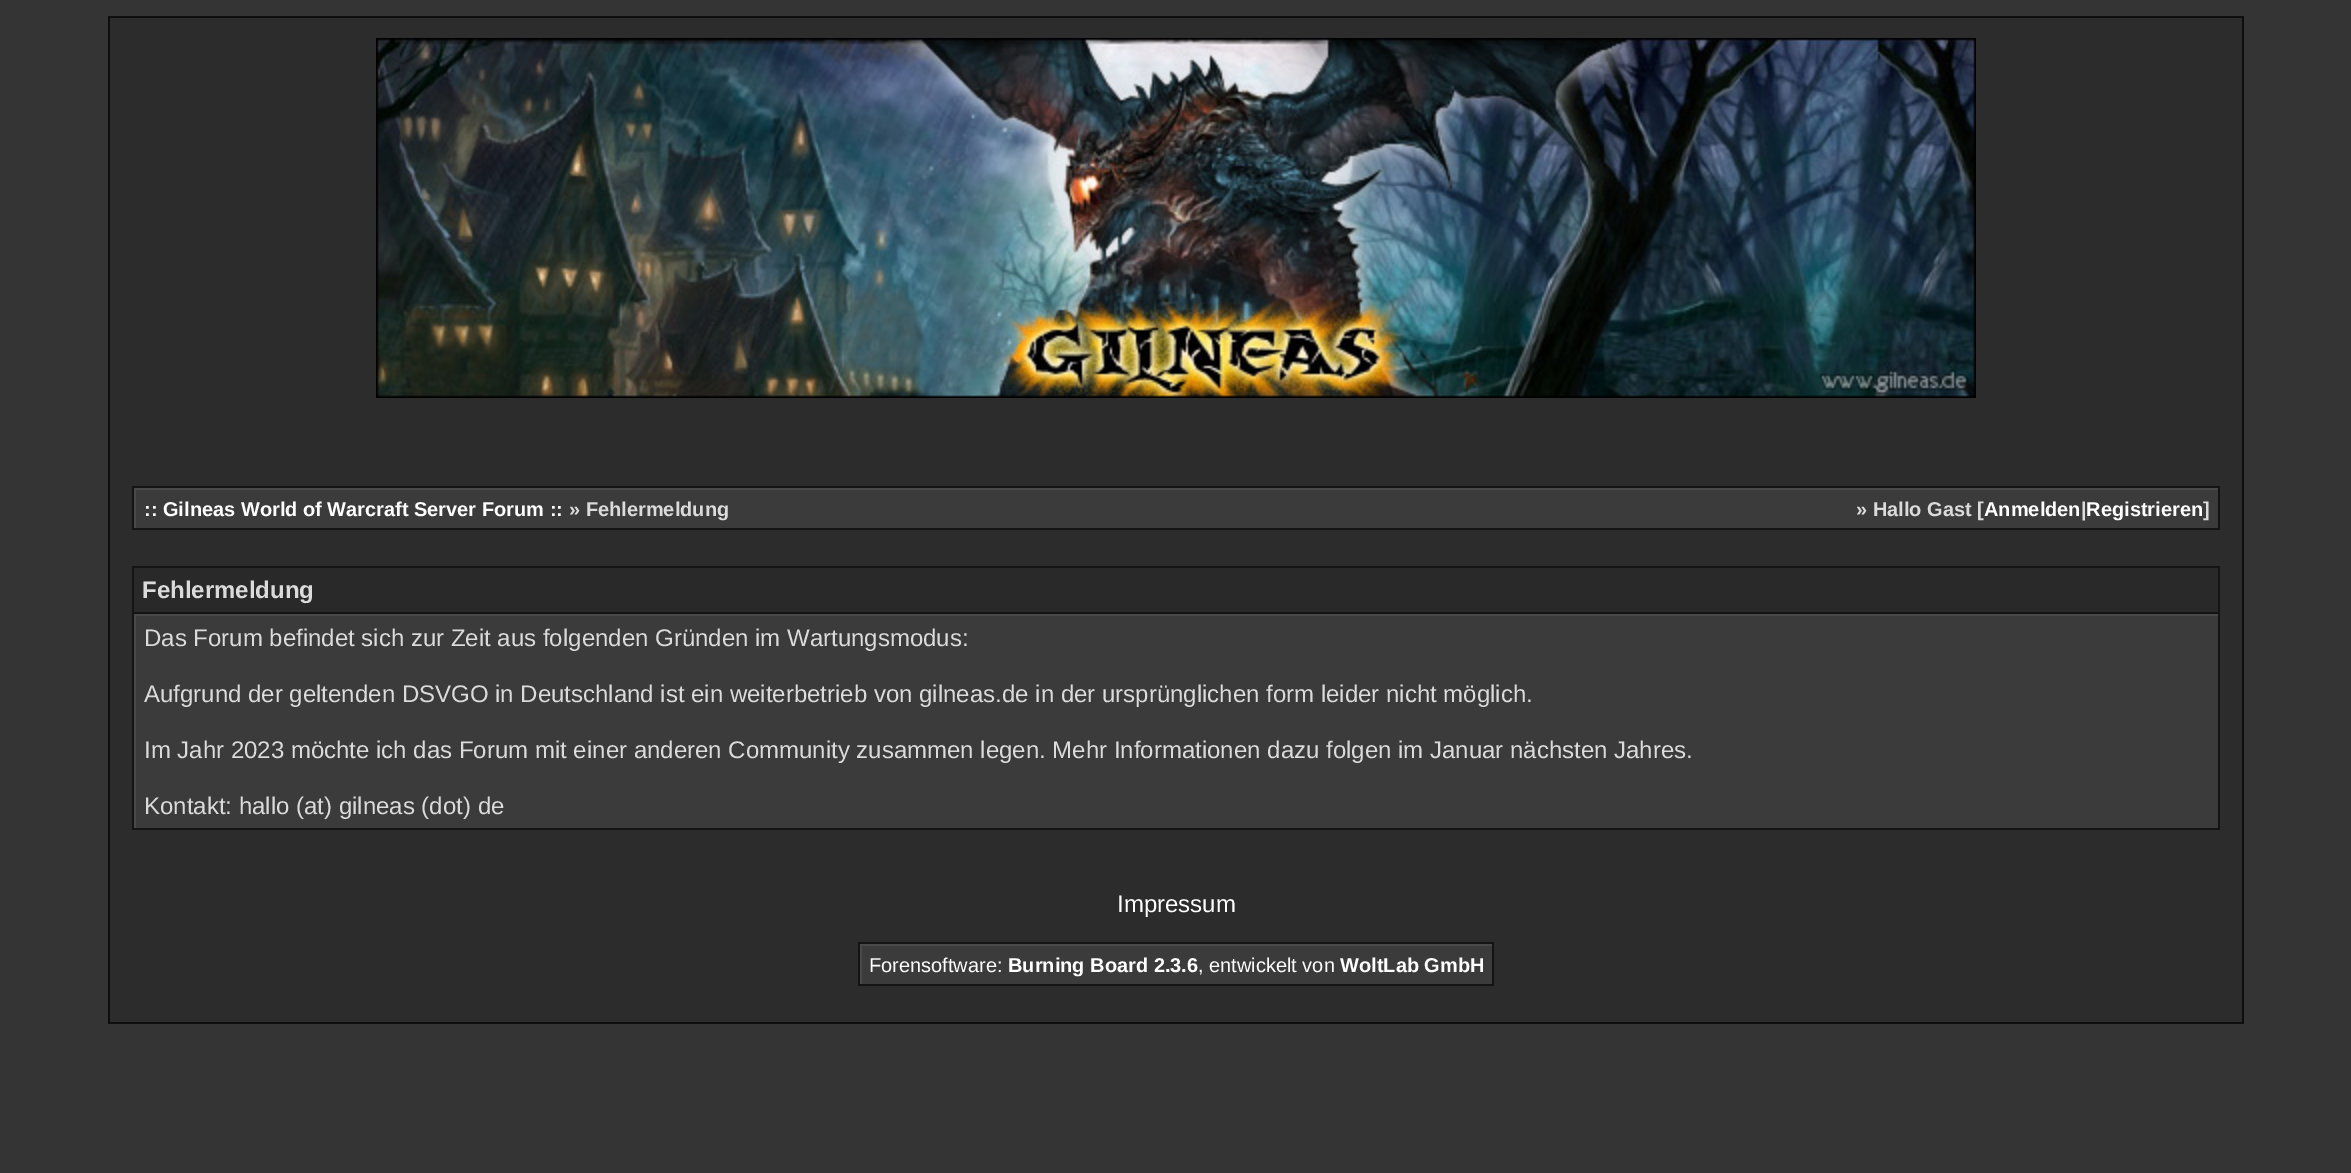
%!PS-Adobe-3.0
%%BoundingBox: 0 0 2351 1173
%%LanguageLevel: 3
%%Pages: 1
%%EndComments
%%BeginProlog
/setink { dup -16 bitshift 255 div exch dup -8 bitshift 255 and 255 div exch 255 and 255 div setrgbcolor } def
/usefont { [ exch dup neg 0 0 3 -1 roll 0 0 ] selectfont } def
/drawimage { 5 dict begin { /h /w /y /x /name } { exch def } forall
  gsave x y translate w h scale
  w h 8 [w 0 0 h 0 0] name (r) file false 3 colorimage grestore end } def
%%EndProlog
%%BeginSetup
<< /PageSize [2351 1173] >> setpagedevice
%%EndSetup
%%Page: 1 1
0 1173 translate 1 -1 scale
4 setmiterlimit
16#343434 setink
0 0 2351 1173 rectfill
16#0E0E0E setink
108 16 2136 1008 rectfill
16#2C2C2C setink
110 18 2132 1004 rectfill
(img1.raw) 376 38 1600 360 drawimage
[
    [132 486 2088 44 16#141414]
    [136 490 2082 38 16#3B3B3B]
    [134 488 2084 2 16#494949]
    [134 488 2 40 16#494949]
] { aload pop setink rectfill } forall
/LiberationSans-Bold 20 usefont
16#FFFFFF setink
144 516 moveto (:: Gilneas World of Warcraft Server Forum ::) show
16#DBDBDB setink
569 516 moveto (» Fehlermeldung) show
1856 516 moveto (» Hallo Gast [) show
16#FFFFFF setink
1984 516 moveto (Anmelden Registrieren) show
16#DBDBDB setink
2081 516 moveto (|) show
2203 516 moveto (]) show
16#141414 setink
132 566 2088 264 rectfill
16#292929 setink
134 568 2084 44 rectfill
/LiberationSans-Bold 24 usefont
16#DBDBDB setink
142 598 moveto (Fehlermeldung) show
[
    [136 616 2082 212 16#3B3B3B]
    [134 614 2084 2 16#494949]
    [134 614 2 214 16#494949]
] { aload pop setink rectfill } forall
/LiberationSans-Regular 24 usefont
16#DBDBDB setink
[
    [(Das Forum befindet sich zur Zeit aus folgenden Gründen im Wartungsmodus:) 144 646]
    [(Aufgrund der geltenden DSVGO in Deutschland ist ein weiterbetrieb von gilneas.de in der ursprünglichen form leider nicht möglich.) 144 702]
    [(Im Jahr 2023 möchte ich das Forum mit einer anderen Community zusammen legen. Mehr Informationen dazu folgen im Januar nächsten Jahres.) 144 758]
    [(Kontakt: hallo \(at\) gilneas \(dot\) de) 144 814]
] { aload pop moveto show } forall
16#FFFFFF setink
1117 912 moveto (Impressum) show
[
    [858 942 636 44 16#141414]
    [862 946 630 38 16#3B3B3B]
    [860 944 632 2 16#494949]
    [860 944 2 40 16#494949]
] { aload pop setink rectfill } forall
/LiberationSans-Regular 20 usefont
16#FFFFFF setink
869 972 moveto (Forensoftware:) show
/LiberationSans-Bold 20 usefont
1008 972 moveto (Burning Board 2.3.6) show
/LiberationSans-Regular 20 usefont
1198 972 moveto (, entwickelt von) show
/LiberationSans-Bold 20 usefont
1340 972 moveto (WoltLab GmbH) show
showpage
%%EOF
